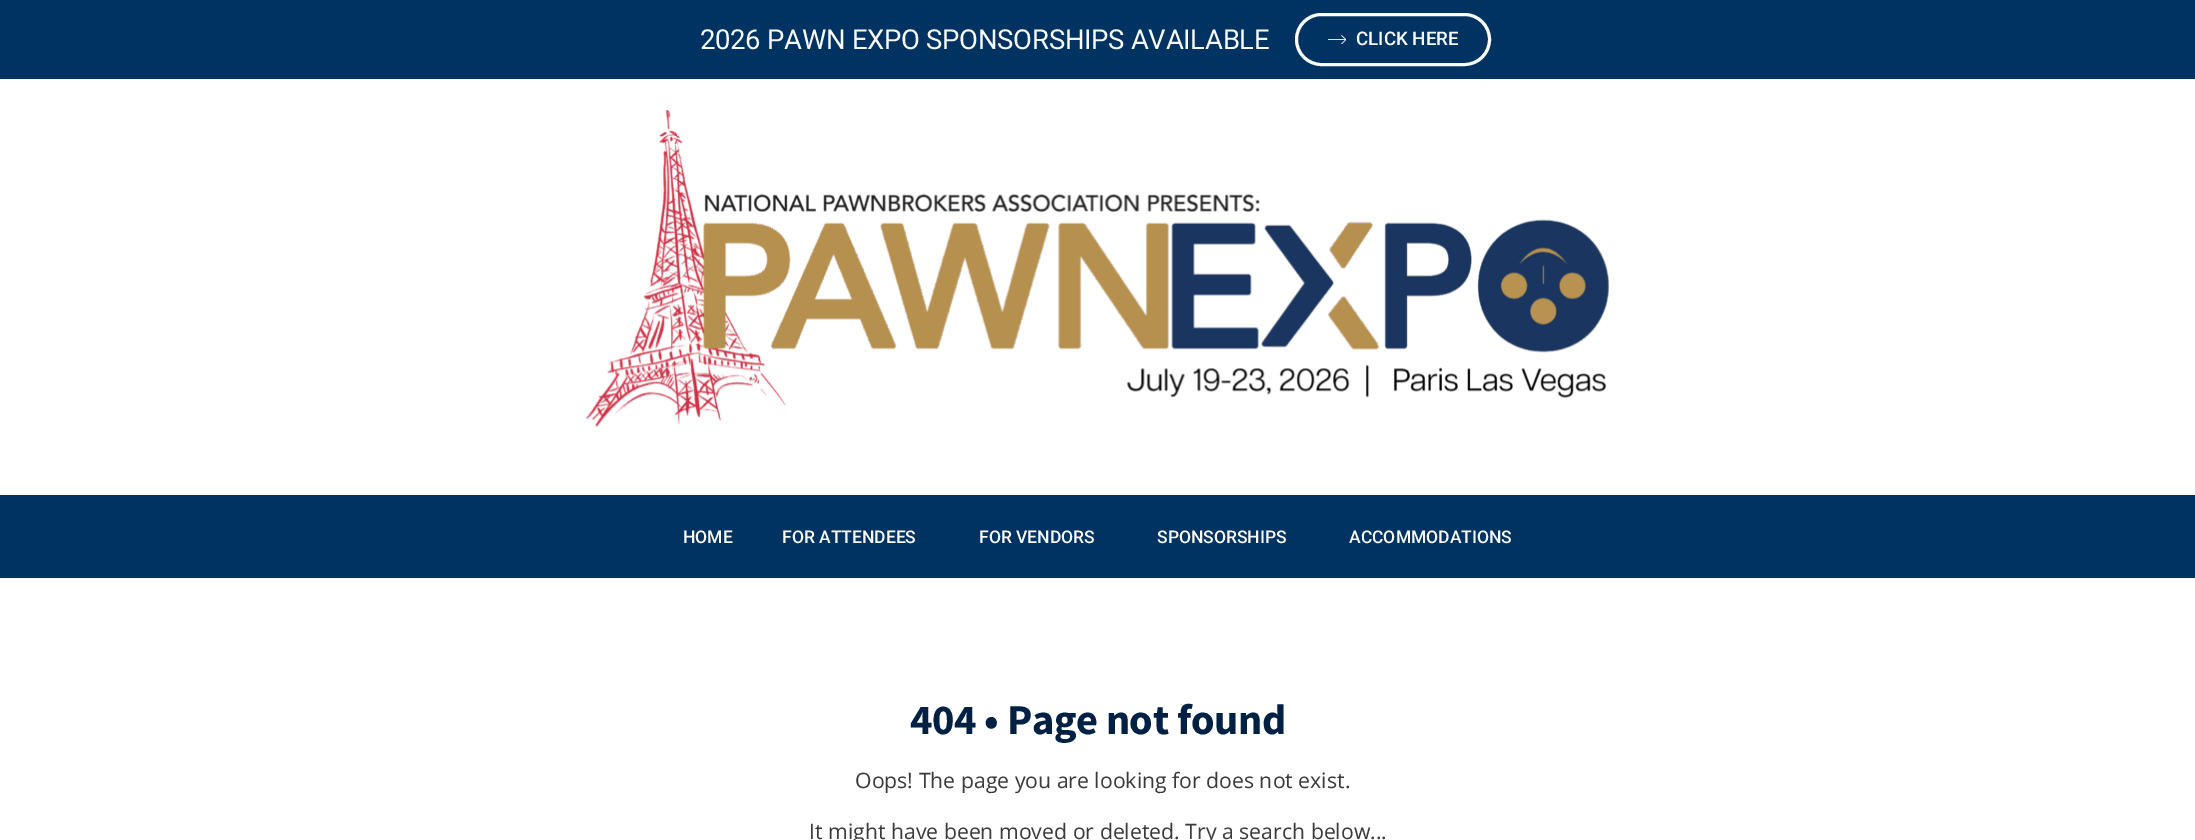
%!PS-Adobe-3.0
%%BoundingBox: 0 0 2195 840
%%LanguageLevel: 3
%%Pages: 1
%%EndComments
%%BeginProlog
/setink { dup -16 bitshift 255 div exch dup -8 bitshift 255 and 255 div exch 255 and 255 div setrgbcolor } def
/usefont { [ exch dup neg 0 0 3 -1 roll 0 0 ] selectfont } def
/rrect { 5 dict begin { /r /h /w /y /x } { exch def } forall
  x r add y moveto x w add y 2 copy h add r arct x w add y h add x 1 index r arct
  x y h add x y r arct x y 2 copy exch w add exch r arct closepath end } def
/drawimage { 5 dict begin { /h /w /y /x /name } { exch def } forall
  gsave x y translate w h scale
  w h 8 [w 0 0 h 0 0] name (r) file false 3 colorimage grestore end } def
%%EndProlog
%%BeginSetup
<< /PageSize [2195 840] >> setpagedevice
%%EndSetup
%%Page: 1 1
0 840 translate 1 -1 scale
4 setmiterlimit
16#FFFFFF setink
0 0 2195 840 rectfill
16#003362 setink
0 0 2195 79 rectfill
/Roboto-Regular 27.5 usefont
16#FAFAFA setink
700 49 moveto -0.3 0 (2026 PAWN EXPO SPONSORSHIPS AVAILABLE) ashow
16#FFFFFF setink
3 setlinewidth
1296.5 14.5 193 50 25 rrect stroke
(img1.raw) 1328 35 18 9 drawimage
/Roboto-Medium 18.75 usefont
16#FAFAFA setink
1356 45 moveto (CLICK HERE) show
(img2.raw) 586 110 1023 317 drawimage
16#003362 setink
0 495 2195 83 rectfill
/Roboto-Medium 17.5 usefont
16#FAFAFA setink
[
    [(HOME) 683 543]
    [(FOR ATTENDEES) 782 543]
    [(FOR VENDORS) 979 543]
    [(SPONSORSHIPS) 1157 543]
    [(ACCOMMODATIONS) 1349 543]
] { aload pop moveto show } forall
/SourceSansPro-Bold 42.5 usefont
16#002044 setink
910 734 moveto -0.4 0 (404 • Page not found) ashow
/OpenSans-Regular 21.25 usefont
16#3A3A3A setink
855 788 moveto (Oops! The page you are looking for does not exist.) show
809 839 moveto (It might have been moved or deleted. Try a search below...) show
showpage
%%EOF
